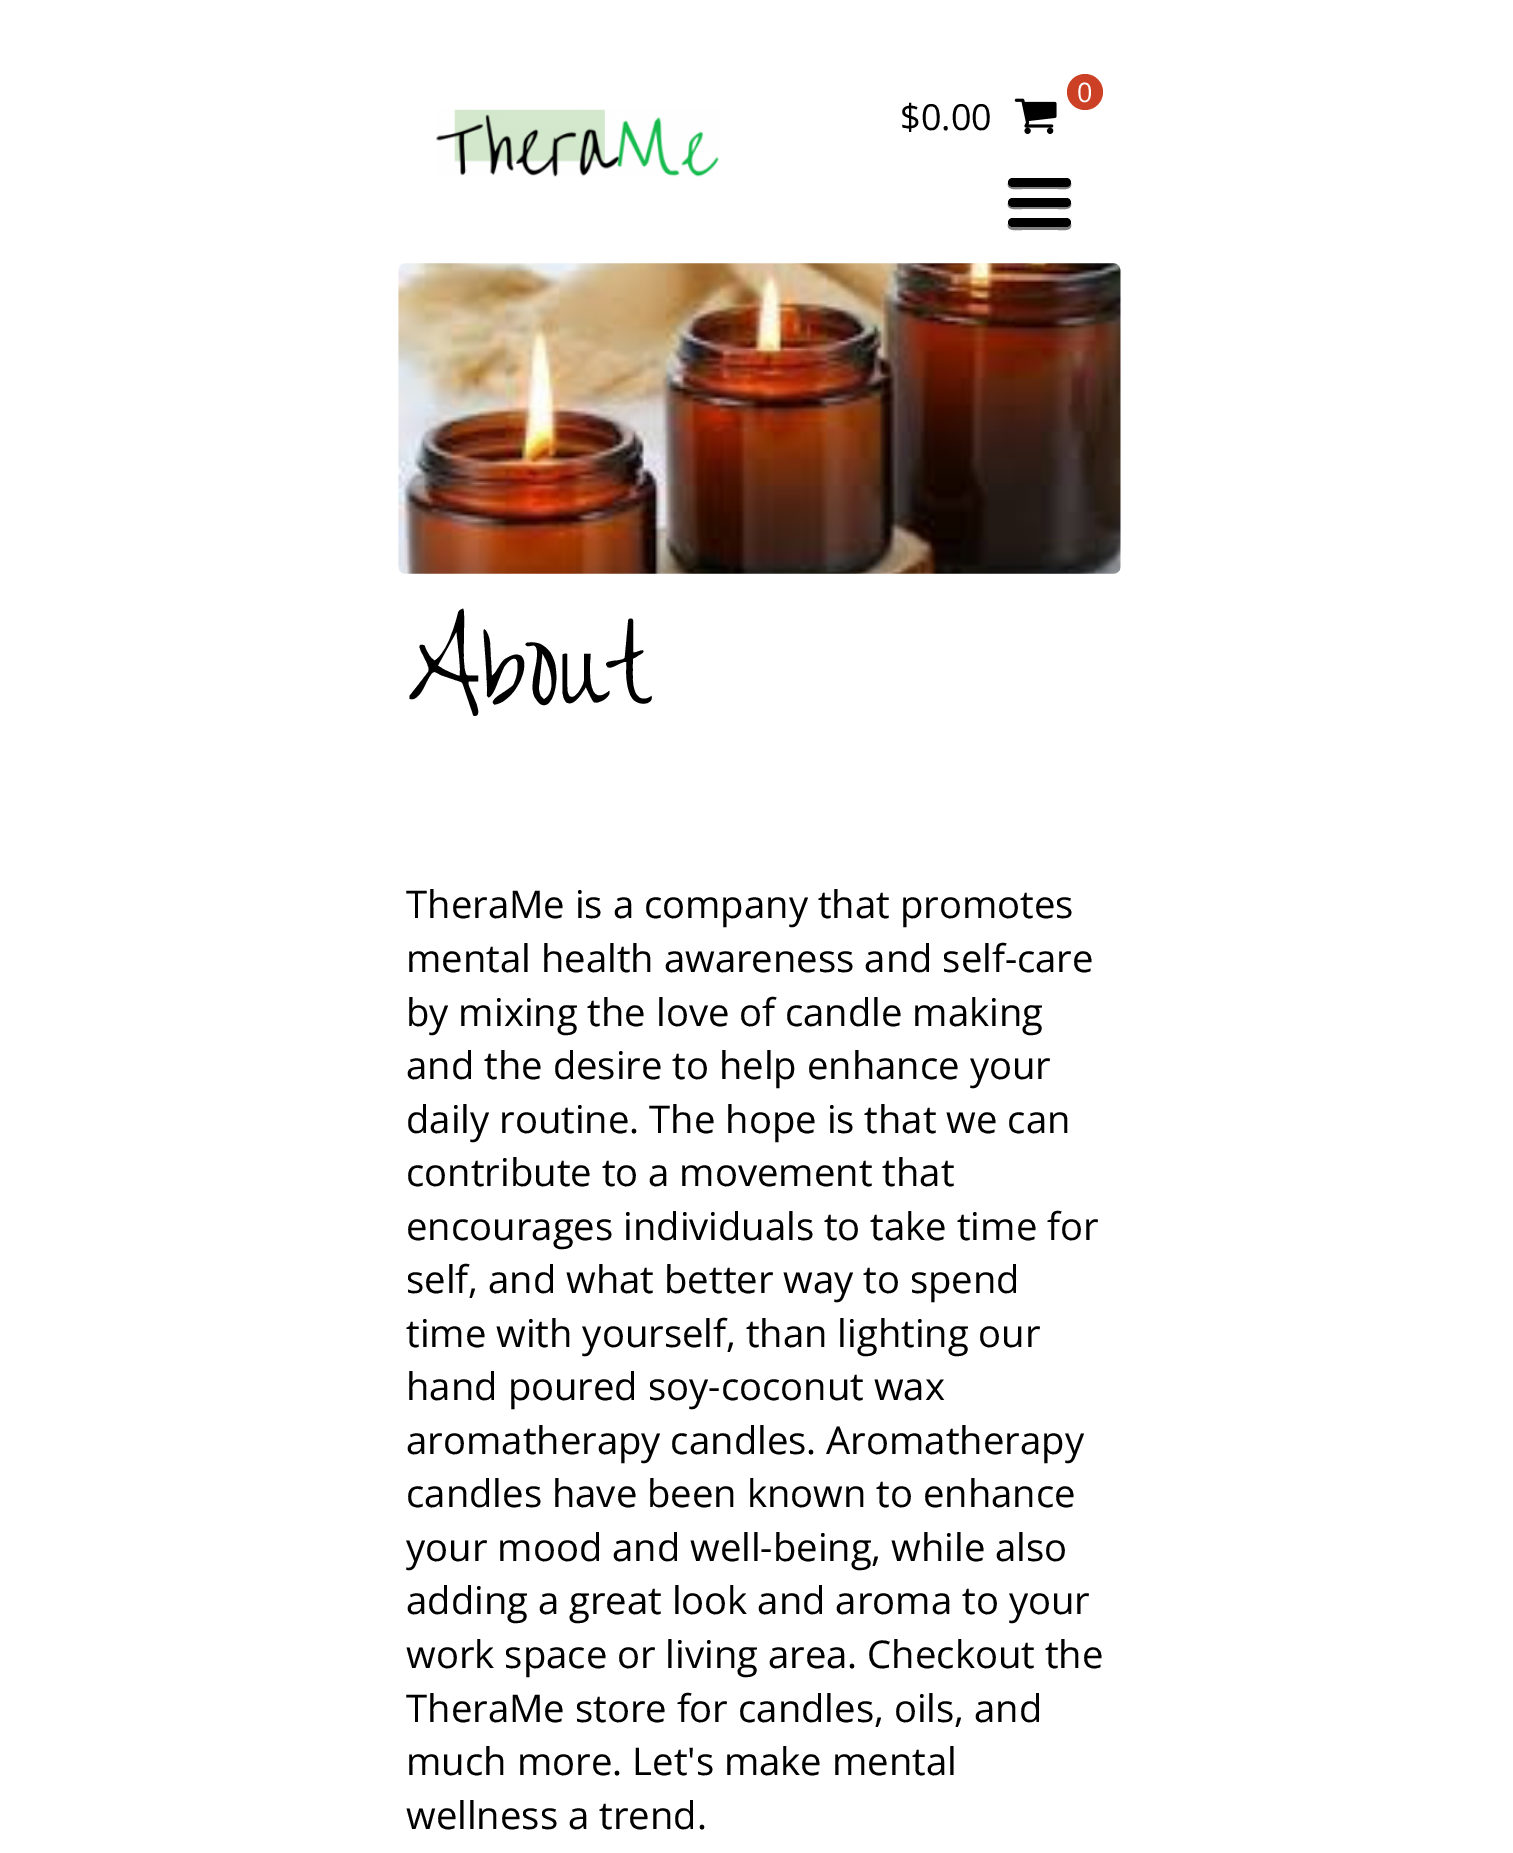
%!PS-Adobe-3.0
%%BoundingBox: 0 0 1513 1853
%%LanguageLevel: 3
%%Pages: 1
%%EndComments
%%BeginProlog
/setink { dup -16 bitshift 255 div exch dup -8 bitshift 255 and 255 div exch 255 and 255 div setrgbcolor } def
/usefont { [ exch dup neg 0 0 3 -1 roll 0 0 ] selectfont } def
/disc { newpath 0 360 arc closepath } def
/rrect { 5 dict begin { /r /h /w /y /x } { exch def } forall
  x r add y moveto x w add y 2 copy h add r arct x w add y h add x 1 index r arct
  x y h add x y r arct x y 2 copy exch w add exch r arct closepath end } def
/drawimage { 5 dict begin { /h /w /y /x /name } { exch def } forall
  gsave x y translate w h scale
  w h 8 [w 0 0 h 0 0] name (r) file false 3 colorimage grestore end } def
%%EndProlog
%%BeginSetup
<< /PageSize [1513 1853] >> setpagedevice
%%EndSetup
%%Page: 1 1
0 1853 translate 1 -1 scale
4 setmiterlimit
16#FFFFFF setink
0 0 1513 1853 rectfill
(img1.raw) 436 109 284 68 drawimage
16#CC4125 setink
1085 92 18 disc fill
/OpenSans-Regular 27 usefont
16#FFFFFF setink
1077 102 moveto (0) show
(img2.raw) 1014 98 43 36 drawimage
/OpenSans-Regular 36 usefont
16#000000 setink
900 130 moveto ($0.00) show
16#7F7F7F setink
1008 183 moveto 1006 191 1019 189 1022 189 curveto 1058 189 lineto 1060 189 1073 191 1071 183 curveto 1070 185 1069 187 1066 187 curveto 1012 187 lineto 1010 187 1009 185 1008 183 curveto closepath fill
16#000000 setink
1008 178 63 9 4.5 rrect fill
16#7F7F7F setink
1008 203 moveto 1006 211 1019 209 1022 209 curveto 1058 209 lineto 1060 209 1073 211 1071 203 curveto 1070 206 1069 207 1066 207 curveto 1012 207 lineto 1010 207 1009 206 1008 203 curveto closepath fill
16#000000 setink
1008 198 63 9 4.5 rrect fill
16#7F7F7F setink
1008 224 moveto 1006 232 1019 230 1022 230 curveto 1058 230 lineto 1060 230 1073 232 1071 224 curveto 1070 226 1069 227 1066 227 curveto 1012 227 lineto 1010 227 1009 226 1008 224 curveto closepath fill
16#000000 setink
1008 218 63 9 4.5 rrect fill
(img3.raw) 398 263 723 311 drawimage
/OvertheRainbow-Regular 99 usefont
406 704 moveto (About) show
/OpenSans-Regular 38.25 usefont
[
    [(TheraMe is a company that promotes) 406 918]
    [(mental health awareness and self-care) 406 972]
    [(by mixing the love of candle making) 406 1026]
    [(and the desire to help enhance your) 406 1079]
    [(daily routine. The hope is that we can) 406 1133]
    [(contribute to a movement that) 406 1186]
    [(encourages individuals to take time for) 406 1240]
    [(self, and what better way to spend) 406 1293]
    [(time with yourself, than lighting our) 406 1347]
    [(hand poured soy-coconut wax) 406 1400]
    [(aromatherapy candles. Aromatherapy) 406 1454]
    [(candles have been known to enhance) 406 1507]
    [(your mood and well-being, while also) 406 1561]
    [(adding a great look and aroma to your) 406 1614]
    [(work space or living area. Checkout the) 406 1668]
    [(TheraMe store for candles, oils, and) 406 1722]
    [(much more. Let's make mental) 406 1775]
    [(wellness a trend.) 406 1829]
] { aload pop moveto show } forall
showpage
%%EOF
